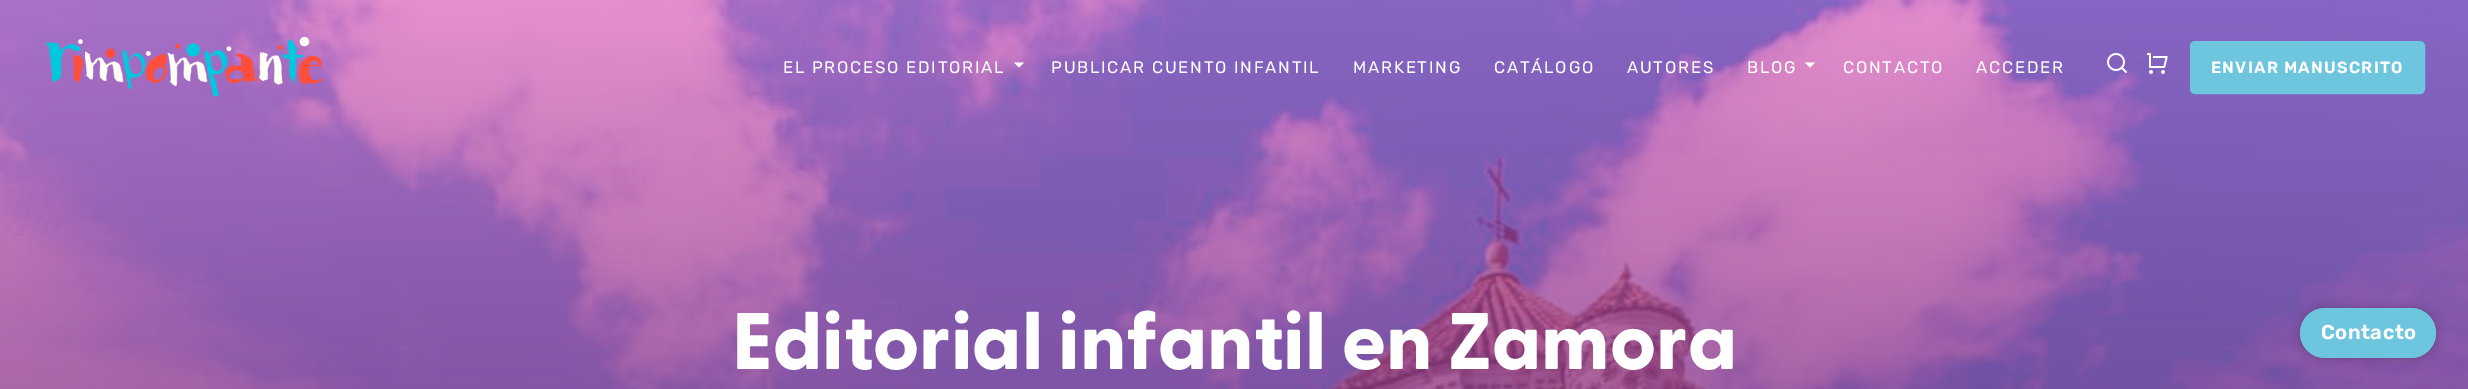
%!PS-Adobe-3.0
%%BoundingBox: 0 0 2468 389
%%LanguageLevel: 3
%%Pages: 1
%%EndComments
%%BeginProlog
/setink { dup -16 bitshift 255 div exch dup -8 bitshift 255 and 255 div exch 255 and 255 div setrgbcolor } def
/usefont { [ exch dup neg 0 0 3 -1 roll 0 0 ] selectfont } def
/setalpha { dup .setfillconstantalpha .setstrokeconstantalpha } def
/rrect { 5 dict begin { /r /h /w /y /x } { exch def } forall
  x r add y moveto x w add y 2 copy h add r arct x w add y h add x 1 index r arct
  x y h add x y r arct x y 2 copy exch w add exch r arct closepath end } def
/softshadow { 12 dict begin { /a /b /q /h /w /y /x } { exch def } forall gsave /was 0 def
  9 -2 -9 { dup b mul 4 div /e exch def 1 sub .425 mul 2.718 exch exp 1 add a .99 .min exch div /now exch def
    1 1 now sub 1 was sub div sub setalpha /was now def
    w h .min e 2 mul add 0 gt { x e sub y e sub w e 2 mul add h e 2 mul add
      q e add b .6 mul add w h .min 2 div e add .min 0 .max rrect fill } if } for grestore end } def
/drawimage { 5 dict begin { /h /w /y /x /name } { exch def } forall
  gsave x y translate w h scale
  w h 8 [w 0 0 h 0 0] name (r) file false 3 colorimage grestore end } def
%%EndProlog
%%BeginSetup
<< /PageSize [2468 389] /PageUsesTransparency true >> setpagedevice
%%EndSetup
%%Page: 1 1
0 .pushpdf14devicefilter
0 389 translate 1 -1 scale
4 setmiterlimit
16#FFFFFF setink
0 0 2468 389 rectfill
(img4.raw) 0 0 2468 389 drawimage
(img1.raw) 45 36 278 61 drawimage
(img2.raw) 2107 53 21 21 drawimage
(img3.raw) 2147 53 21 21 drawimage
/Rubik-Regular 16.75 usefont
783 73 moveto 1.75 0 (EL PROCESO EDITORIAL) ashow
1014 62.5 moveto 1024 62.5 lineto 1019 67.5 lineto closepath fill
1051 73 moveto 1.75 0 (PUBLICAR CUENTO INFANTIL) ashow
1353 73 moveto 1.75 0 (MARKETING) ashow
1494 73 moveto 1.75 0 (CATÁLOGO) ashow
1627 73 moveto 1.75 0 (AUTORES) ashow
1747 73 moveto 1.75 0 (BLOG) ashow
1805 62.5 moveto 1815 62.5 lineto 1810 67.5 lineto closepath fill
1843 73 moveto 1.75 0 (CONTACTO) ashow
1976 73 moveto 1.75 0 (ACCEDER) ashow
16#6DC6DD setink
2190.5 41.5 234 52 4.5 rrect gsave fill grestore
stroke
/Rubik-SemiBold 16.25 usefont
16#FFFFFF setink
2211 73 moveto 1.25 0 (ENVIAR MANUSCRITO) ashow
/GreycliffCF-ExtraBold 80 usefont
732 369 moveto (Editorial infantil en Zamora) show
16#000000 setink
2300 308 136 50 25 6 0.2 softshadow
16#6DC6DD setink
2300 308 136 50 25 rrect fill
/Rubik-SemiBold 20 usefont
16#FFFFFF setink
2321 339 moveto 0.5 0 (Contacto) ashow
.poppdf14devicefilter showpage
%%EOF
